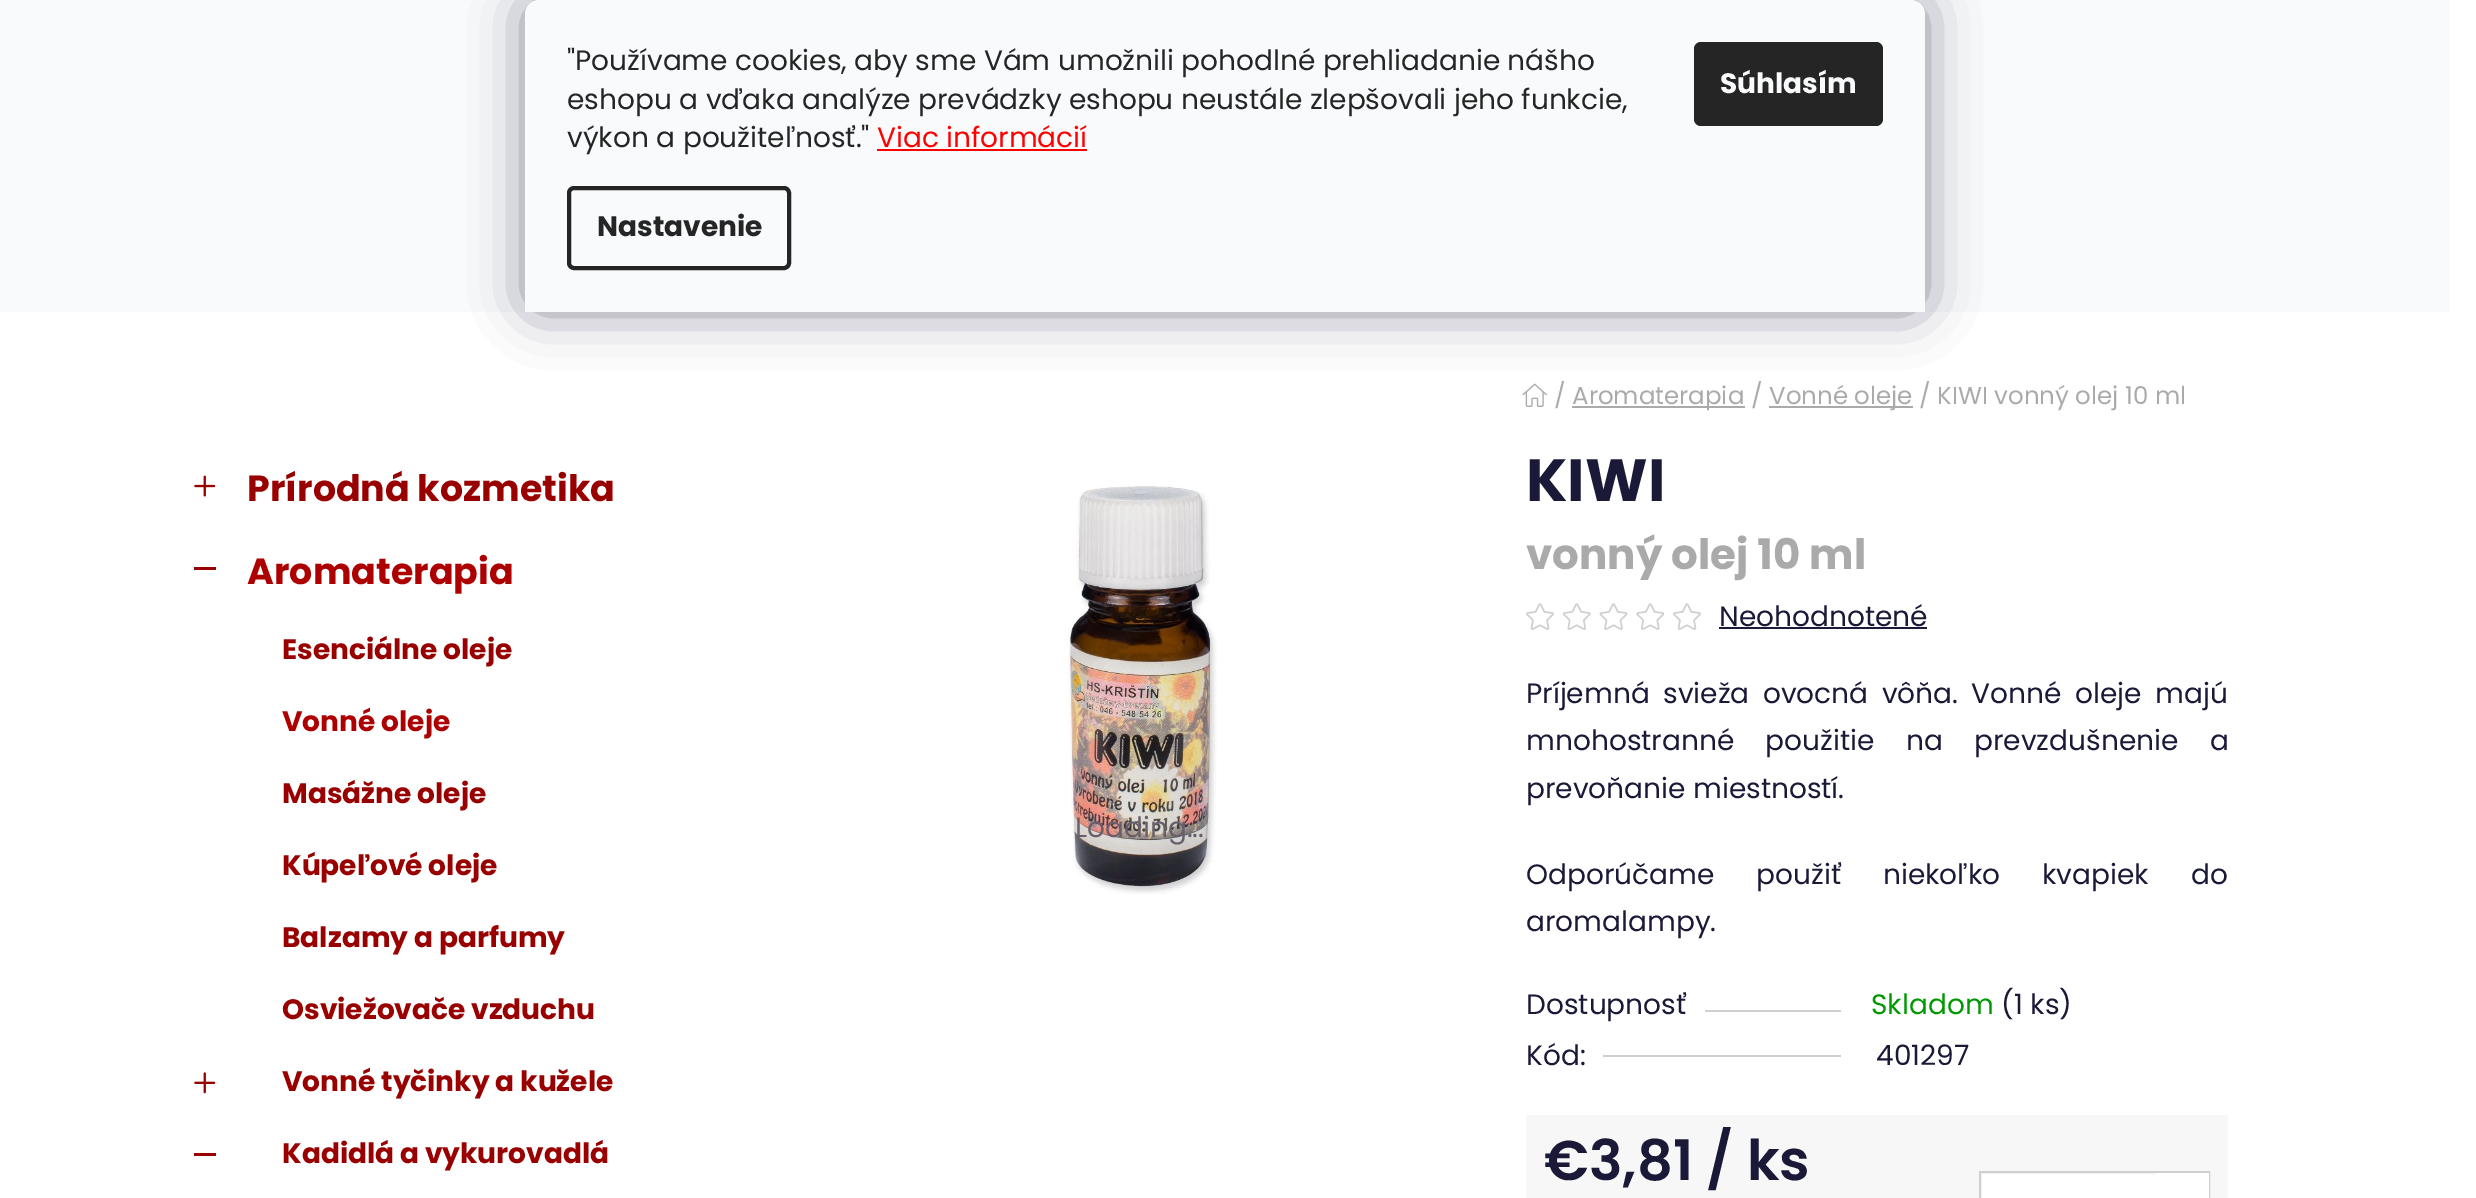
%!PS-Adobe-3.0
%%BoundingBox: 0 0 2476 1198
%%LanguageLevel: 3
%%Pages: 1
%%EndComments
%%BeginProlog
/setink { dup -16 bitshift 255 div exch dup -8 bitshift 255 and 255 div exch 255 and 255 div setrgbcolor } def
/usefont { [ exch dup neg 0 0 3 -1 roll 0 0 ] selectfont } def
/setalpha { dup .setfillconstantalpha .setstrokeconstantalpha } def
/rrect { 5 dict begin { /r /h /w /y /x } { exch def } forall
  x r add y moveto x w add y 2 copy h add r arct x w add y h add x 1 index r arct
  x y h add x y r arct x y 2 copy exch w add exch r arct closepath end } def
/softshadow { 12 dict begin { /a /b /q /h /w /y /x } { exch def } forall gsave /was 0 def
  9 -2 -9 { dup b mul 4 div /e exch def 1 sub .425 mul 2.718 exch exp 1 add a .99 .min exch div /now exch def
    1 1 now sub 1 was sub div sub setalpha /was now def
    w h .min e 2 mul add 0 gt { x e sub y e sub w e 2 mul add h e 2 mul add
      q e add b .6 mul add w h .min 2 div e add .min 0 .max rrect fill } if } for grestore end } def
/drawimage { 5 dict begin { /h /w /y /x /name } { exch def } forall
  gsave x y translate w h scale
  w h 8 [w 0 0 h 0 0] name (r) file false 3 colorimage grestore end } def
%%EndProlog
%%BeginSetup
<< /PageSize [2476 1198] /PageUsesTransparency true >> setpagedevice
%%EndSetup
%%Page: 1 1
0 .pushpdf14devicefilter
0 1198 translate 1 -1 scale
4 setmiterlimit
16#FFFFFF setink
0 0 2476 1198 rectfill
16#F8FAFB setink
0 0 2450 312 rectfill
(img1.raw) 1522 383 25 24 drawimage
16#1B1939 setink
525 0 1400 312 14 26 0.5 softshadow
16#F8FAFB setink
539 0 moveto 1911 0 lineto 1918.5 0 1925 6.5 1925 14 curveto 1925 312 lineto 525 312 lineto 525 14 lineto 525 6.5 531.5 0 539 0 curveto closepath fill
/Poppins-Regular 28 usefont
16#252525 setink
[
    [("Používame cookies, aby sme Vám umožnili pohodlné prehliadanie nášho) 567 70]
    [(eshopu a vďaka analýze prevádzky eshopu neustále zlepšovali jeho funkcie,) 567 109]
    [(výkon a použiteľnosť.") 567 147]
] { aload pop moveto show } forall
16#FF0000 setink
877 147 moveto (Viac informácií) show
877 149 210 2 rectfill
16#252525 setink
4 setlinewidth
569 188 220 80 5 rrect stroke
/Poppins-Bold 28 usefont
597 236 moveto (Nastavenie) show
1694 42 189 84 7 rrect fill
16#F8FAFB setink
1720 93 moveto (Súhlasím) show
/Poppins-Regular 24.5 usefont
16#AAAAAA setink
1554 404 moveto (/) show
1572 406 173 2 rectfill
1572 404 moveto (Aromaterapia /) show
1769 406 144 2 rectfill
1769 404 moveto (Vonné oleje / KIWI vonný olej 10 ml) show
(img2.raw) 194 475 22 22 drawimage
/Poppins-Bold 36.4 usefont
16#990000 setink
247 501 moveto (Prírodná kozmetika) show
194 567 22 3 rectfill
16#AD0000 setink
247 584 moveto (Aromaterapia) show
/Poppins-Bold 28 usefont
16#990000 setink
282 659 moveto (Esenciálne oleje) show
16#AD0000 setink
282 731 moveto (Vonné oleje) show
16#990000 setink
[
    [(Masážne oleje) 282 803]
    [(Kúpeľové oleje) 282 875]
    [(Balzamy a parfumy) 282 947]
    [(Osviežovače vzduchu) 282 1019]
] { aload pop moveto show } forall
(img3.raw) 194 1072 22 22 drawimage
282 1091 moveto (Vonné tyčinky a kužele) show
194 1153 22 3 rectfill
282 1163 moveto (Kadidlá a vykurovadlá) show
(img4.raw) 1066 486 151 408 drawimage
/Poppins-Regular 28 usefont
16#695F6B setink
1075 837 moveto (Loading...) show
/Poppins-Bold 59.5 usefont
16#1A1937 setink
1526 501 moveto (KIWI) show
/Poppins-Bold 42 usefont
16#AAAAAA setink
1526 569 moveto (vonný olej 10 ml) show
(img5.raw) 1526 603 28 27 drawimage
(img6.raw) 1562 603 29 27 drawimage
(img7.raw) 1599 603 29 27 drawimage
(img8.raw) 1636 603 29 27 drawimage
(img5.raw) 1673 603 28 27 drawimage
/Poppins-Regular 28 usefont
16#1A1937 setink
1719 626 moveto (Neohodnotené) show
1719 627 208 2 rectfill
1526 703 moveto 6 0 32 (Príjemná svieža ovocná vôňa. Vonné oleje majú) widthshow
1526 750 moveto 24 0 32 (mnohostranné použitie na prevzdušnenie a) widthshow
1526 798 moveto (prevoňanie miestností.) show
1526 884 moveto 34.5 0 32 (Odporúčame použiť niekoľko kvapiek do) widthshow
1526 931 moveto (aromalampy.) show
1526 1014 moveto (Dostupnosť) show
16#CFCFCF setink
1705 1010 136 2 rectfill
16#009901 setink
1871 1014 moveto (Skladom) show
16#1A1937 setink
2001 1014 moveto (\(1 ks\)) show
1526 1065 moveto (Kód:) show
16#CFCFCF setink
1603 1055 238 2 rectfill
16#1A1937 setink
1876 1065 moveto (401297) show
16#F7F7F7 setink
1526 1115 702 83 rectfill
/Poppins-SemiBold 56 usefont
16#1A1937 setink
1544 1180 moveto (€3,81 / ks) show
16#FFFFFF setink
1981 1173 175 25 rectfill
16#CFCFCF setink
2 setlinewidth
1980 1172 229 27 rectstroke
16#FFFFFF setink
2156 1173 53 25 rectfill
.poppdf14devicefilter showpage
%%EOF
